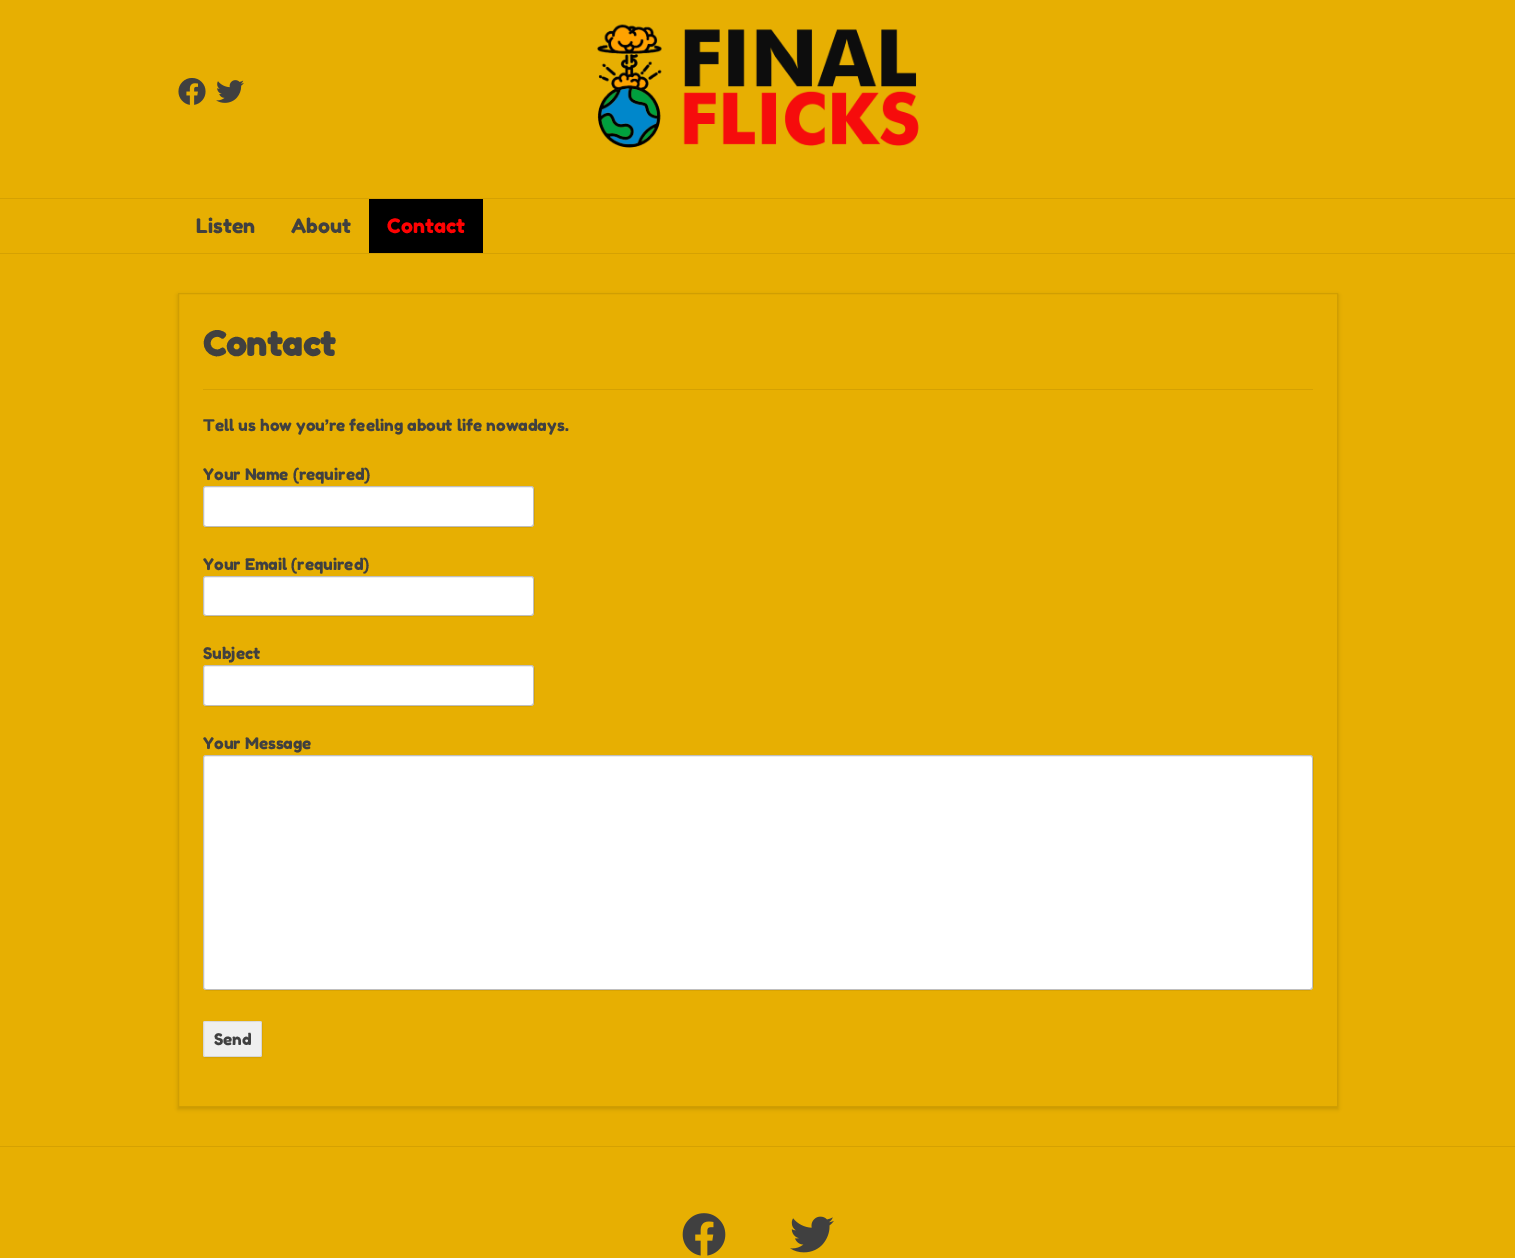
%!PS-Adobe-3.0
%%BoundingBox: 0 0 1515 1258
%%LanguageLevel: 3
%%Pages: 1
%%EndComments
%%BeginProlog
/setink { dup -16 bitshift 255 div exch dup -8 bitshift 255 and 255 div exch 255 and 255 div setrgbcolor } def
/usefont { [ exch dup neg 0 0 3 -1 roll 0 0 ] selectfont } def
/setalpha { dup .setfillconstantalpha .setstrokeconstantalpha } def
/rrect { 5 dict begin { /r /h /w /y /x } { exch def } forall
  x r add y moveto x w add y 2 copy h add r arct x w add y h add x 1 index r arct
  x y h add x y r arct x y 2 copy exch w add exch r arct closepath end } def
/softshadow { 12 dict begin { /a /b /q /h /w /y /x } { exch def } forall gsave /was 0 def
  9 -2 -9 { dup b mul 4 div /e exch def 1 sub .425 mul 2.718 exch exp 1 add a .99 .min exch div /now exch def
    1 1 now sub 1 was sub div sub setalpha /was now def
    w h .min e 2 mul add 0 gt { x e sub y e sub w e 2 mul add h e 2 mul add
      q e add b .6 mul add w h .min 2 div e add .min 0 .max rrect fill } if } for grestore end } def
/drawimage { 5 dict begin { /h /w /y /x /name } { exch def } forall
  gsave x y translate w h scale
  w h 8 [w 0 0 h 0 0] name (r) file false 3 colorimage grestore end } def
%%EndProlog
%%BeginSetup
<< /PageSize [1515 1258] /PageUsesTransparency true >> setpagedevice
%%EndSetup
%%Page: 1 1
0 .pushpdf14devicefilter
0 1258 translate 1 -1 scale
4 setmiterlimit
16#E7AF02 setink
0 0 1515 1258 rectfill
16#D5A102 setink
0 253 1515 1 rectfill
(img1.raw) 178 78 28 27 drawimage
(img2.raw) 216 80 28 23 drawimage
(img3.raw) 597 24 322 124 drawimage
0 198 1515 1 rectfill
/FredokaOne-Regular 20 usefont
16#404040 setink
196 233 moveto (Listen) show
291 233 moveto (About) show
16#000000 setink
369 199 114 54 rectfill
16#FF0202 setink
387 233 moveto (Contact) show
gsave
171 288 moveto 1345 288 lineto 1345 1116 lineto 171 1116 lineto closepath 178 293 moveto 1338 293 lineto 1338 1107 lineto 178 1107 lineto closepath eoclip newpath
16#000000 setink
178 295 1160 814 0 2 0.15 softshadow
grestore
16#D09E02 setink
178.5 293.5 1159 813 rectstroke
16#D5A102 setink
203 389 1110 1 rectfill
/FredokaOne-Bold 34 usefont
16#404040 setink
203 356 moveto (Contact) show
/FredokaOne-Regular 16 usefont
203 431 moveto (Tell us how you’re feeling about life nowadays.) show
203 480 moveto (Your Name \(required\)) show
16#FFFFFF setink
203 486 331 41 3 rrect fill
0.25 setalpha
16#000000 setink
203.5 486.5 330 40 2.5 rrect stroke
1 setalpha
16#404040 setink
203 570 moveto (Your Email \(required\)) show
16#FFFFFF setink
203 576 331 40 3 rrect fill
0.25 setalpha
16#000000 setink
203.5 576.5 330 39 2.5 rrect stroke
1 setalpha
16#404040 setink
203 659 moveto (Subject) show
16#FFFFFF setink
203 665 331 41 3 rrect fill
0.25 setalpha
16#000000 setink
203.5 665.5 330 40 2.5 rrect stroke
1 setalpha
16#404040 setink
203 749 moveto (Your Message) show
16#FFFFFF setink
203 755 1110 235 3 rrect fill
0.25 setalpha
16#000000 setink
203.5 755.5 1109 234 2.5 rrect stroke
1 setalpha
203 1022 59 36 2 1 0.06 softshadow
16#EFEFEF setink
203 1021 59 36 2 rrect fill
16#F5F5F5 setink
205 1023 moveto 260 1023 lineto 261 1023 261 1023 261 1024 curveto 261 1019 255 1022 251 1022 curveto 214 1022 lineto 210 1022 204 1019 204 1024 curveto 204 1023 204 1023 205 1023 curveto closepath fill
0.1 setalpha
16#000000 setink
203.5 1021.5 58 35 1.5 rrect stroke
1 setalpha
16#404040 setink
214 1045 moveto (Send) show
16#D5A102 setink
0 1146 1515 1 rectfill
(img4.raw) 682 1213 44 43 drawimage
(img5.raw) 790 1216 44 37 drawimage
.poppdf14devicefilter showpage
%%EOF
